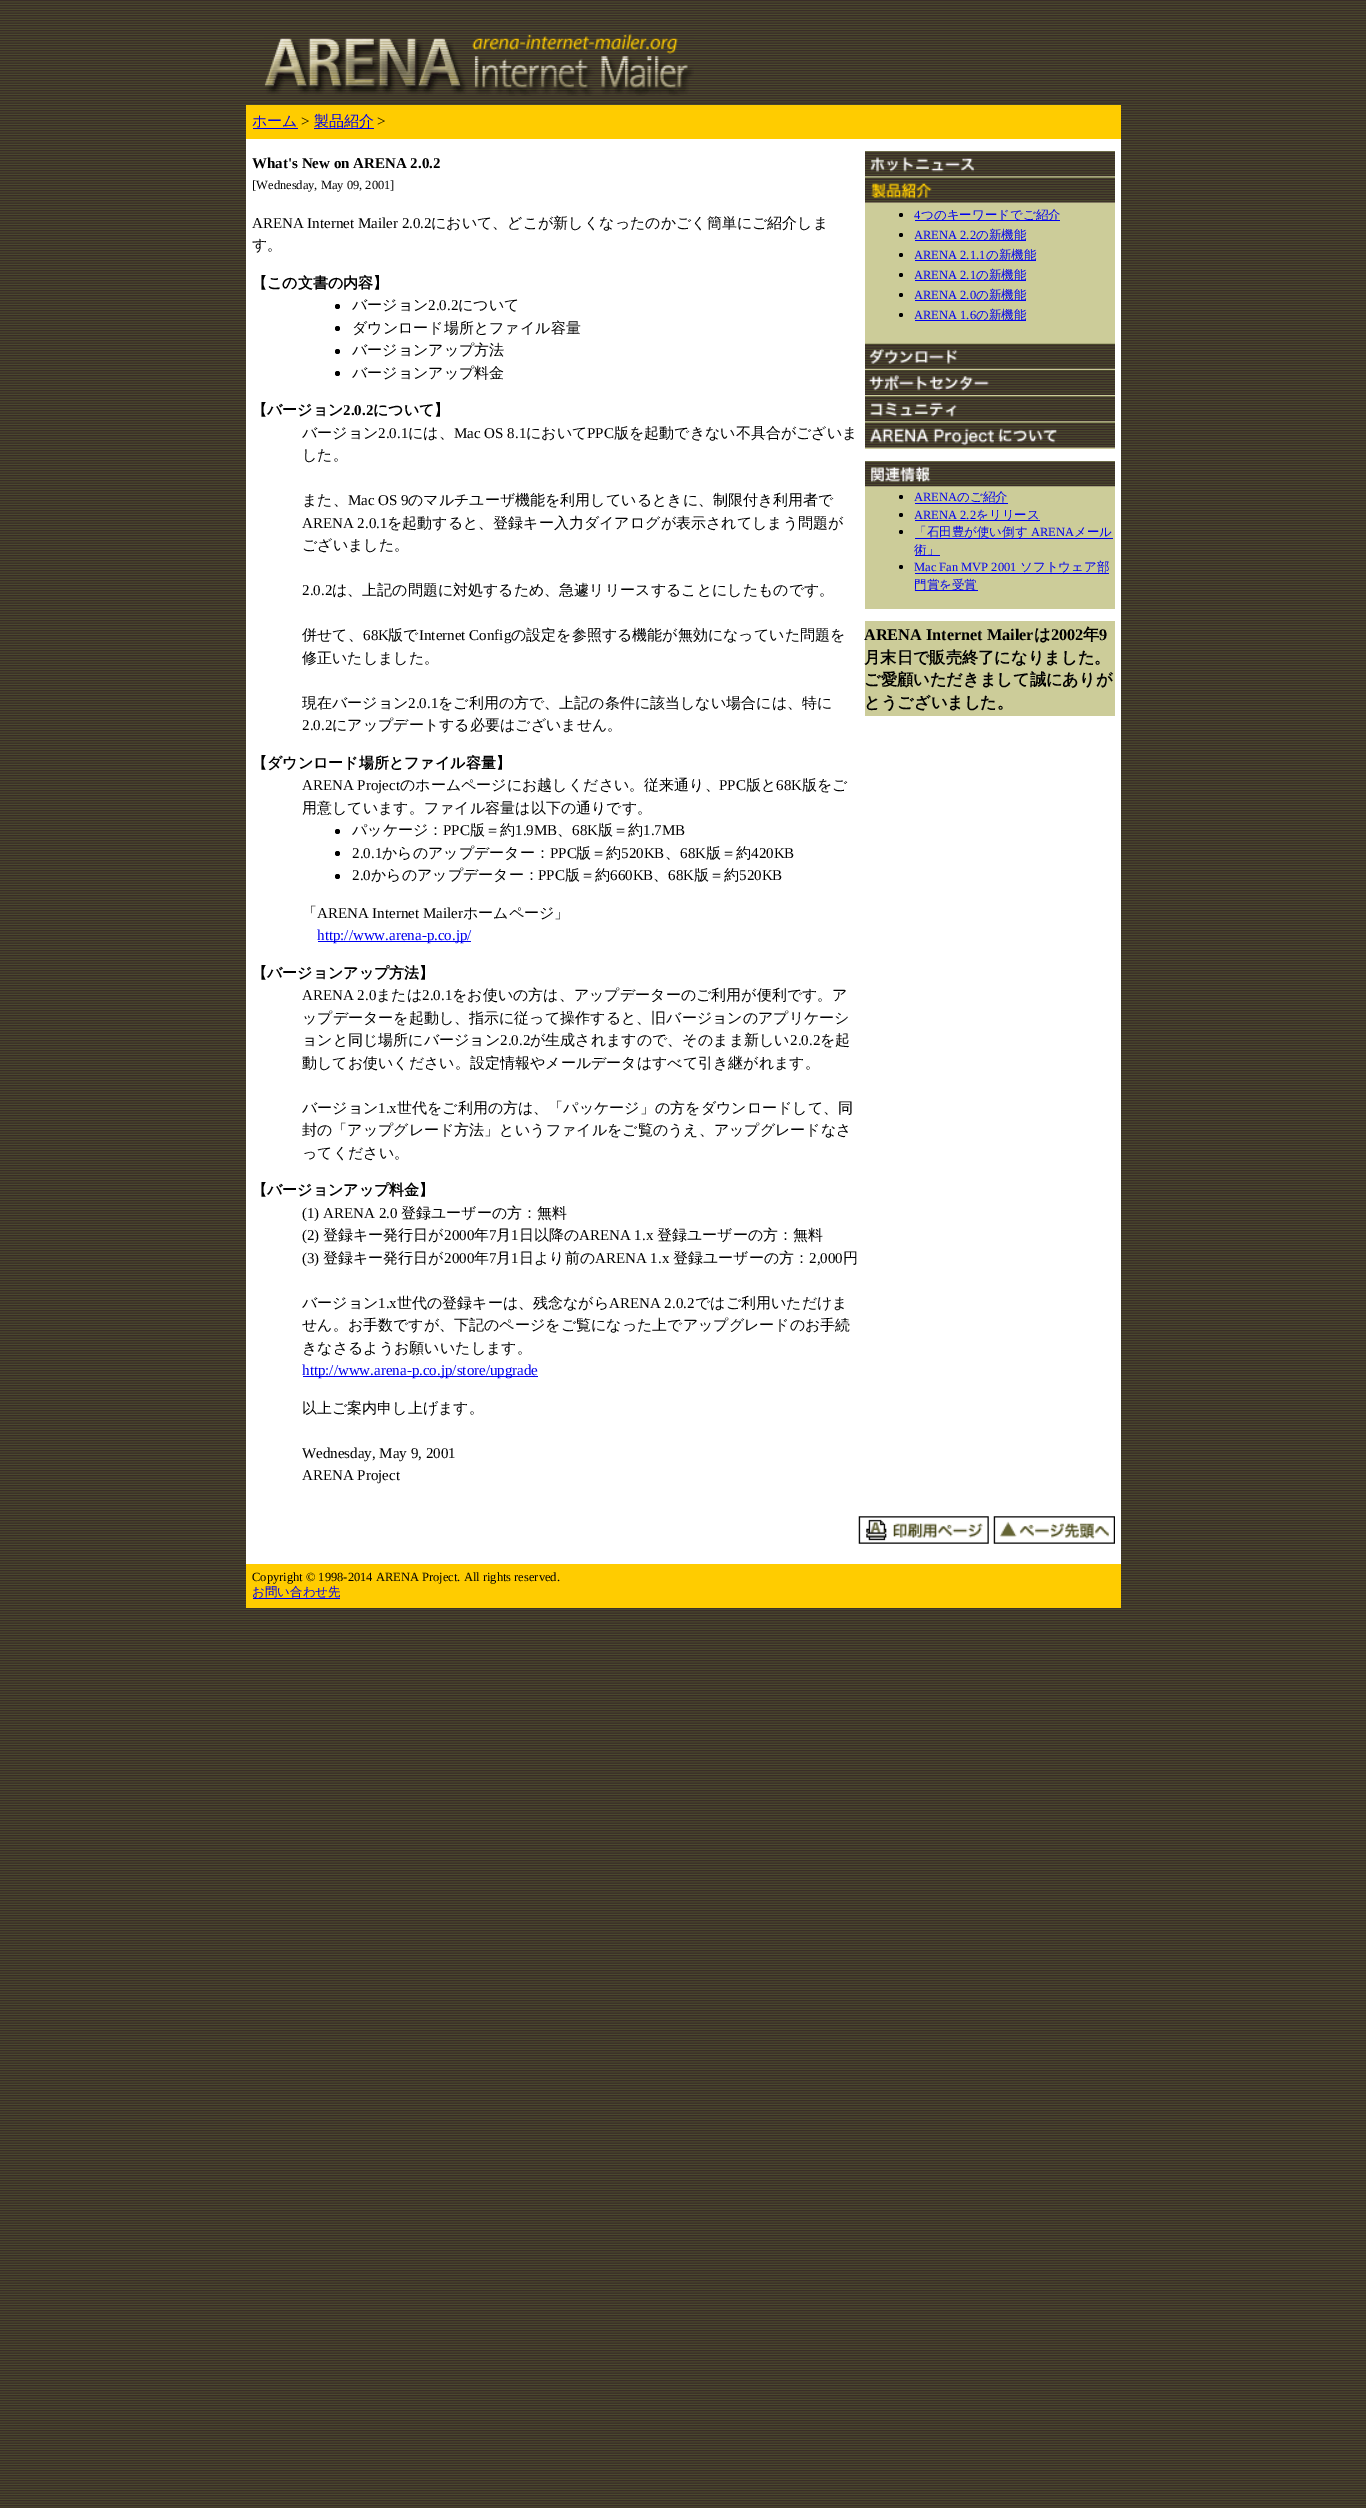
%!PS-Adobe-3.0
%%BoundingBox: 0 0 1366 2508
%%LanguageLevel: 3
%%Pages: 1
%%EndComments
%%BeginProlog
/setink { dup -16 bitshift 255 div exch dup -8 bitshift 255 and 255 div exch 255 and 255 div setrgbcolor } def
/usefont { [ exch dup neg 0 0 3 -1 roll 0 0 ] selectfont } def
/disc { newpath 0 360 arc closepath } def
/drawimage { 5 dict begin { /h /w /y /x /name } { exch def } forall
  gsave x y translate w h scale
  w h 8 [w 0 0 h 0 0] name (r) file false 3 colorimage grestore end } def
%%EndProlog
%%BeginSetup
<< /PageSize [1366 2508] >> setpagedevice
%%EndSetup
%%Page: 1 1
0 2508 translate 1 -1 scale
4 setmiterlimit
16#FFFFFF setink
0 0 1366 2508 rectfill
(img1.raw) 0 0 1366 2508 drawimage
(img2.raw) 264 33 430 63 drawimage
16#FFCC00 setink
246 105 875 34 rectfill
/WenQuanYiZenHei-Medium 15 usefont
16#0000EE setink
252 126 moveto (ホーム) show
253 128 45 1 rectfill
/LiberationSerif-Regular 15 usefont
16#000000 setink
301 126 moveto (>) show
16#0000EE setink
314 128 60 1 rectfill
/WenQuanYiZenHei-Medium 15 usefont
314 126 moveto (製品紹介) show
/LiberationSerif-Regular 15 usefont
16#000000 setink
377 126 moveto (>) show
16#FFFFFF setink
246 139 875 1425 rectfill
/LiberationSerif-Bold 15 usefont
16#000000 setink
252 168 moveto (What's New on ARENA 2.0.2) show
/LiberationSerif-Regular 12.5 usefont
252 189 moveto ([Wednesday, May 09, 2001]) show
/LiberationSerif-Regular 15 usefont
252 228 moveto (ARENA Internet Mailer 2.0.2) show
/WenQuanYiZenHei-Medium 15 usefont
431 228 moveto (において、どこが新しくなったのかごく簡単にご紹介しま) show
252 250 moveto (す。) show
/WenQuanYiZenHei-Bold 15 usefont
252 288 moveto (【この文書の内容】) show
337.5 306.5 2.5 disc fill
/WenQuanYiZenHei-Medium 15 usefont
352 310 moveto (バージョン) show
/LiberationSerif-Regular 15 usefont
428 310 moveto (2.0.2) show
/WenQuanYiZenHei-Medium 15 usefont
458 310 moveto (について) show
337.5 328.5 2.5 disc fill
352 333 moveto (ダウンロード場所とファイル容量) show
337.5 351.5 2.5 disc fill
352 355 moveto (バージョンアップ方法) show
337.5 373.5 2.5 disc fill
352 378 moveto (バージョンアップ料金) show
/WenQuanYiZenHei-Bold 15 usefont
252 415 moveto (【バージョン) show
/LiberationSerif-Bold 15 usefont
343 415 moveto (2.0.2) show
/WenQuanYiZenHei-Bold 15 usefont
373 415 moveto (について】) show
/WenQuanYiZenHei-Medium 15 usefont
302 438 moveto (バージョン) show
/LiberationSerif-Regular 15 usefont
378 438 moveto (2.0.1) show
/WenQuanYiZenHei-Medium 15 usefont
408 438 moveto (には、) show
/LiberationSerif-Regular 15 usefont
454 438 moveto (Mac OS 8.1) show
/WenQuanYiZenHei-Medium 15 usefont
526 438 moveto (において) show
/LiberationSerif-Regular 15 usefont
587 438 moveto (PPC) show
/WenQuanYiZenHei-Medium 15 usefont
[
    [(版を起動できない不具合がございま) 614 438]
    [(した。) 302 460]
    [(また、) 302 505]
] { aload pop moveto show } forall
/LiberationSerif-Regular 15 usefont
348 505 moveto (Mac OS 9) show
/WenQuanYiZenHei-Medium 15 usefont
408 505 moveto (のマルチユーザ機能を利用しているときに、制限付き利用者で) show
/LiberationSerif-Regular 15 usefont
302 528 moveto (ARENA 2.0.1) show
/WenQuanYiZenHei-Medium 15 usefont
387 528 moveto (を起動すると、登録キー入力ダイアログが表示されてしまう問題が) show
302 550 moveto (ございました。) show
/LiberationSerif-Regular 15 usefont
302 595 moveto (2.0.2) show
/WenQuanYiZenHei-Medium 15 usefont
332 595 moveto (は、上記の問題に対処するため、急遽リリースすることにしたものです。) show
302 640 moveto (併せて、) show
/LiberationSerif-Regular 15 usefont
363 640 moveto (68K) show
/WenQuanYiZenHei-Medium 15 usefont
388 640 moveto (版で) show
/LiberationSerif-Regular 15 usefont
419 640 moveto (Internet Config) show
/WenQuanYiZenHei-Medium 15 usefont
[
    [(の設定を参照する機能が無効になっていた問題を) 511 640]
    [(修正いたしました。) 302 663]
    [(現在バージョン) 302 708]
] { aload pop moveto show } forall
/LiberationSerif-Regular 15 usefont
408 708 moveto (2.0.1) show
/WenQuanYiZenHei-Medium 15 usefont
438 708 moveto (をご利用の方で、上記の条件に該当しない場合には、特に) show
/LiberationSerif-Regular 15 usefont
302 730 moveto (2.0.2) show
/WenQuanYiZenHei-Medium 15 usefont
332 730 moveto (にアップデートする必要はございません。) show
/WenQuanYiZenHei-Bold 15 usefont
252 768 moveto (【ダウンロード場所とファイル容量】) show
/LiberationSerif-Regular 15 usefont
302 790 moveto (ARENA Project) show
/WenQuanYiZenHei-Medium 15 usefont
400 790 moveto (のホームページにお越しください。従来通り、) show
/LiberationSerif-Regular 15 usefont
719 790 moveto (PPC) show
/WenQuanYiZenHei-Medium 15 usefont
746 790 moveto (版と) show
/LiberationSerif-Regular 15 usefont
776 790 moveto (68K) show
/WenQuanYiZenHei-Medium 15 usefont
802 790 moveto (版をご) show
302 813 moveto (用意しています。ファイル容量は以下の通りです。) show
337.5 831.5 2.5 disc fill
352 835 moveto (パッケージ：) show
/LiberationSerif-Regular 15 usefont
443 835 moveto (PPC) show
/WenQuanYiZenHei-Medium 15 usefont
470 835 moveto (版＝約) show
/LiberationSerif-Regular 15 usefont
515 835 moveto (1.9MB) show
572 835 moveto (68K) show
/WenQuanYiZenHei-Medium 15 usefont
598 835 moveto (版＝約) show
/LiberationSerif-Regular 15 usefont
643 835 moveto (1.7MB) show
/WenQuanYiZenHei-Medium 15 usefont
557 835 moveto (、) show
337.5 853.5 2.5 disc fill
/LiberationSerif-Regular 15 usefont
352 858 moveto (2.0.1) show
/WenQuanYiZenHei-Medium 15 usefont
382 858 moveto (からのアップデーター：) show
/LiberationSerif-Regular 15 usefont
550 858 moveto (PPC) show
/WenQuanYiZenHei-Medium 15 usefont
576 858 moveto (版＝約) show
/LiberationSerif-Regular 15 usefont
621 858 moveto (520KB) show
680 858 moveto (68K) show
/WenQuanYiZenHei-Medium 15 usefont
706 858 moveto (版＝約) show
/LiberationSerif-Regular 15 usefont
751 858 moveto (420KB) show
/WenQuanYiZenHei-Medium 15 usefont
665 858 moveto (、) show
337.5 876.5 2.5 disc fill
/LiberationSerif-Regular 15 usefont
352 880 moveto (2.0) show
/WenQuanYiZenHei-Medium 15 usefont
371 880 moveto (からのアップデーター：) show
/LiberationSerif-Regular 15 usefont
538 880 moveto (PPC) show
/WenQuanYiZenHei-Medium 15 usefont
565 880 moveto (版＝約) show
/LiberationSerif-Regular 15 usefont
610 880 moveto (660KB) show
668 880 moveto (68K) show
/WenQuanYiZenHei-Medium 15 usefont
694 880 moveto (版＝約) show
/LiberationSerif-Regular 15 usefont
739 880 moveto (520KB) show
/WenQuanYiZenHei-Medium 15 usefont
653 880 moveto (、) show
302 918 moveto (「) show
/LiberationSerif-Regular 15 usefont
317 918 moveto (ARENA Internet Mailer) show
/WenQuanYiZenHei-Medium 15 usefont
463 918 moveto (ホームページ」) show
16#0000EE setink
318 941 153 1 rectfill
/LiberationSerif-Regular 15 usefont
317 940 moveto (http://www.arena-p.co.jp/) show
/WenQuanYiZenHei-Bold 15 usefont
16#000000 setink
252 978 moveto (【バージョンアップ方法】) show
/LiberationSerif-Regular 15 usefont
302 1000 moveto (ARENA 2.0) show
/WenQuanYiZenHei-Medium 15 usefont
376 1000 moveto (または) show
/LiberationSerif-Regular 15 usefont
422 1000 moveto (2.0.1) show
/WenQuanYiZenHei-Medium 15 usefont
[
    [(をお使いの方は、アップデーターのご利用が便利です。ア) 452 1000]
    [(ップデーターを起動し、指示に従って操作すると、旧バージョンのアプリケーシ) 302 1023]
    [(ョンと同じ場所にバージョン) 302 1045]
] { aload pop moveto show } forall
/LiberationSerif-Regular 15 usefont
500 1045 moveto (2.0.2) show
/WenQuanYiZenHei-Medium 15 usefont
530 1045 moveto (が生成されますので、そのまま新しい) show
/LiberationSerif-Regular 15 usefont
790 1045 moveto (2.0.2) show
/WenQuanYiZenHei-Medium 15 usefont
[
    [(を起) 820 1045]
    [(動してお使いください。設定情報やメールデータはすべて引き継がれます。) 302 1068]
    [(バージョン) 302 1113]
] { aload pop moveto show } forall
/LiberationSerif-Regular 15 usefont
378 1113 moveto (1.x) show
/WenQuanYiZenHei-Medium 15 usefont
[
    [(世代をご利用の方は、「パッケージ」の方をダウンロードして、同) 397 1113]
    [(封の「アップグレード方法」というファイルをご覧のうえ、アップグレードなさ) 302 1135]
    [(ってください。) 302 1158]
] { aload pop moveto show } forall
/WenQuanYiZenHei-Bold 15 usefont
252 1195 moveto (【バージョンアップ料金】) show
/LiberationSerif-Regular 15 usefont
302 1218 moveto (\(1\) ARENA 2.0) show
/WenQuanYiZenHei-Medium 15 usefont
401 1218 moveto (登録ユーザーの方：無料) show
/LiberationSerif-Regular 15 usefont
302 1240 moveto (\(2\)) show
/WenQuanYiZenHei-Medium 15 usefont
323 1240 moveto (登録キー発行日が) show
/LiberationSerif-Regular 15 usefont
444 1240 moveto (2000) show
/WenQuanYiZenHei-Medium 15 usefont
474 1240 moveto (年) show
/LiberationSerif-Regular 15 usefont
489 1240 moveto (7) show
/WenQuanYiZenHei-Medium 15 usefont
496 1240 moveto (月) show
/LiberationSerif-Regular 15 usefont
511 1240 moveto (1) show
/WenQuanYiZenHei-Medium 15 usefont
519 1240 moveto (日以降の) show
/LiberationSerif-Regular 15 usefont
579 1240 moveto (ARENA 1.x) show
/WenQuanYiZenHei-Medium 15 usefont
657 1240 moveto (登録ユーザーの方：無料) show
/LiberationSerif-Regular 15 usefont
302 1263 moveto (\(3\)) show
/WenQuanYiZenHei-Medium 15 usefont
323 1263 moveto (登録キー発行日が) show
/LiberationSerif-Regular 15 usefont
444 1263 moveto (2000) show
/WenQuanYiZenHei-Medium 15 usefont
474 1263 moveto (年) show
/LiberationSerif-Regular 15 usefont
489 1263 moveto (7) show
/WenQuanYiZenHei-Medium 15 usefont
496 1263 moveto (月) show
/LiberationSerif-Regular 15 usefont
511 1263 moveto (1) show
/WenQuanYiZenHei-Medium 15 usefont
519 1263 moveto (日より前の) show
/LiberationSerif-Regular 15 usefont
595 1263 moveto (ARENA 1.x) show
/WenQuanYiZenHei-Medium 15 usefont
673 1263 moveto (登録ユーザーの方：) show
/LiberationSerif-Regular 15 usefont
809 1263 moveto (2,000) show
/WenQuanYiZenHei-Medium 15 usefont
843 1263 moveto (円) show
302 1308 moveto (バージョン) show
/LiberationSerif-Regular 15 usefont
378 1308 moveto (1.x) show
/WenQuanYiZenHei-Medium 15 usefont
397 1308 moveto (世代の登録キーは、残念ながら) show
/LiberationSerif-Regular 15 usefont
609 1308 moveto (ARENA 2.0.2) show
/WenQuanYiZenHei-Medium 15 usefont
[
    [(ではご利用いただけま) 695 1308]
    [(せん。お手数ですが、下記のページをご覧になった上でアップグレードのお手続) 302 1330]
    [(きなさるようお願いいたします。) 302 1353]
] { aload pop moveto show } forall
16#0000EE setink
303 1376 235 1 rectfill
/LiberationSerif-Regular 15 usefont
302 1375 moveto (http://www.arena-p.co.jp/store/upgrade) show
/WenQuanYiZenHei-Medium 15 usefont
16#000000 setink
302 1413 moveto (以上ご案内申し上げます。) show
/LiberationSerif-Regular 15 usefont
302 1458 moveto (Wednesday, May 9, 2001) show
302 1480 moveto (ARENA Project) show
16#CCCC99 setink
865 151 250 565 rectfill
(img3.raw) 865 151 250 26 drawimage
(img4.raw) 865 177 250 26 drawimage
16#000000 setink
901 215 2 disc fill
/LiberationSerif-Regular 12.5 usefont
16#0000EE setink
914 219 moveto (4) show
915 220 145 1 rectfill
/WenQuanYiZenHei-Medium 12.5 usefont
921 219 moveto (つのキーワードでご紹介) show
16#000000 setink
901 235 2 disc fill
/LiberationSerif-Regular 12.5 usefont
16#0000EE setink
914 239 moveto (ARENA 2.2) show
915 240 111 1 rectfill
/WenQuanYiZenHei-Medium 12.5 usefont
976 239 moveto (の新機能) show
16#000000 setink
901 255 2 disc fill
/LiberationSerif-Regular 12.5 usefont
16#0000EE setink
914 259 moveto (ARENA 2.1.1) show
915 260 121 1 rectfill
/WenQuanYiZenHei-Medium 12.5 usefont
986 259 moveto (の新機能) show
16#000000 setink
901 275 2 disc fill
/LiberationSerif-Regular 12.5 usefont
16#0000EE setink
914 279 moveto (ARENA 2.1) show
915 280 111 1 rectfill
/WenQuanYiZenHei-Medium 12.5 usefont
976 279 moveto (の新機能) show
16#000000 setink
901 295 2 disc fill
/LiberationSerif-Regular 12.5 usefont
16#0000EE setink
914 299 moveto (ARENA 2.0) show
915 300 111 1 rectfill
/WenQuanYiZenHei-Medium 12.5 usefont
976 299 moveto (の新機能) show
16#000000 setink
901 315 2 disc fill
/LiberationSerif-Regular 12.5 usefont
16#0000EE setink
914 319 moveto (ARENA 1.6) show
915 320 111 1 rectfill
/WenQuanYiZenHei-Medium 12.5 usefont
976 319 moveto (の新機能) show
(img5.raw) 865 343 250 26 drawimage
(img6.raw) 865 370 250 25 drawimage
(img7.raw) 865 396 250 26 drawimage
(img8.raw) 865 422 250 26 drawimage
16#FFFFFF setink
865 449 250 12 rectfill
(img9.raw) 865 461 250 26 drawimage
16#000000 setink
901 497 2 disc fill
/LiberationSerif-Regular 12.5 usefont
16#0000EE setink
914 501 moveto (ARENA) show
915 503 93 1 rectfill
/WenQuanYiZenHei-Medium 12.5 usefont
957 501 moveto (のご紹介) show
16#000000 setink
901 515 2 disc fill
/LiberationSerif-Regular 12.5 usefont
16#0000EE setink
914 519 moveto (ARENA 2.2) show
915 520 125 1 rectfill
/WenQuanYiZenHei-Medium 12.5 usefont
976 519 moveto (をリリース) show
16#000000 setink
901 532 2 disc fill
16#0000EE setink
915 538 198 1 rectfill
914 536 moveto (「石田豊が使い倒す) show
/LiberationSerif-Regular 12.5 usefont
1031 536 moveto (ARENA) show
/WenQuanYiZenHei-Medium 12.5 usefont
1074 536 moveto (メール) show
915 555 25 1 rectfill
914 554 moveto (術」) show
16#000000 setink
901 567 2 disc fill
/LiberationSerif-Regular 12.5 usefont
16#0000EE setink
914 571 moveto (Mac Fan MVP 2001) show
915 573 194 1 rectfill
/WenQuanYiZenHei-Medium 12.5 usefont
1020 571 moveto (ソフトウェア部) show
915 590 63 1 rectfill
914 589 moveto (門賞を受賞) show
16#FFFFFF setink
865 609 250 12 rectfill
/LiberationSerif-Bold 16.25 usefont
16#000000 setink
864 640 moveto (ARENA Internet Mailer) show
/WenQuanYiZenHei-Bold 16.25 usefont
1034 640 moveto (は) show
/LiberationSerif-Bold 16.25 usefont
1051 640 moveto (2002) show
/WenQuanYiZenHei-Bold 16.25 usefont
1083 640 moveto (年) show
/LiberationSerif-Bold 16.25 usefont
1099 640 moveto (9) show
/WenQuanYiZenHei-Bold 16.25 usefont
[
    [(月末日で販売終了になりました。) 864 663]
    [(ご愛顧いただきまして誠にありが) 864 685]
    [(とうございました。) 864 708]
] { aload pop moveto show } forall
(img10.raw) 858 1516 131 28 drawimage
(img11.raw) 993 1516 122 28 drawimage
16#FFCC00 setink
246 1564 875 44 rectfill
/LiberationSerif-Regular 12.5 usefont
16#000000 setink
252 1581 moveto (Copyright © 1998-2014 ARENA Project. All rights reserved.) show
/WenQuanYiZenHei-Medium 12.5 usefont
16#0000EE setink
252 1596 moveto (お問い合わせ先) show
253 1598 87 1 rectfill
showpage
%%EOF
